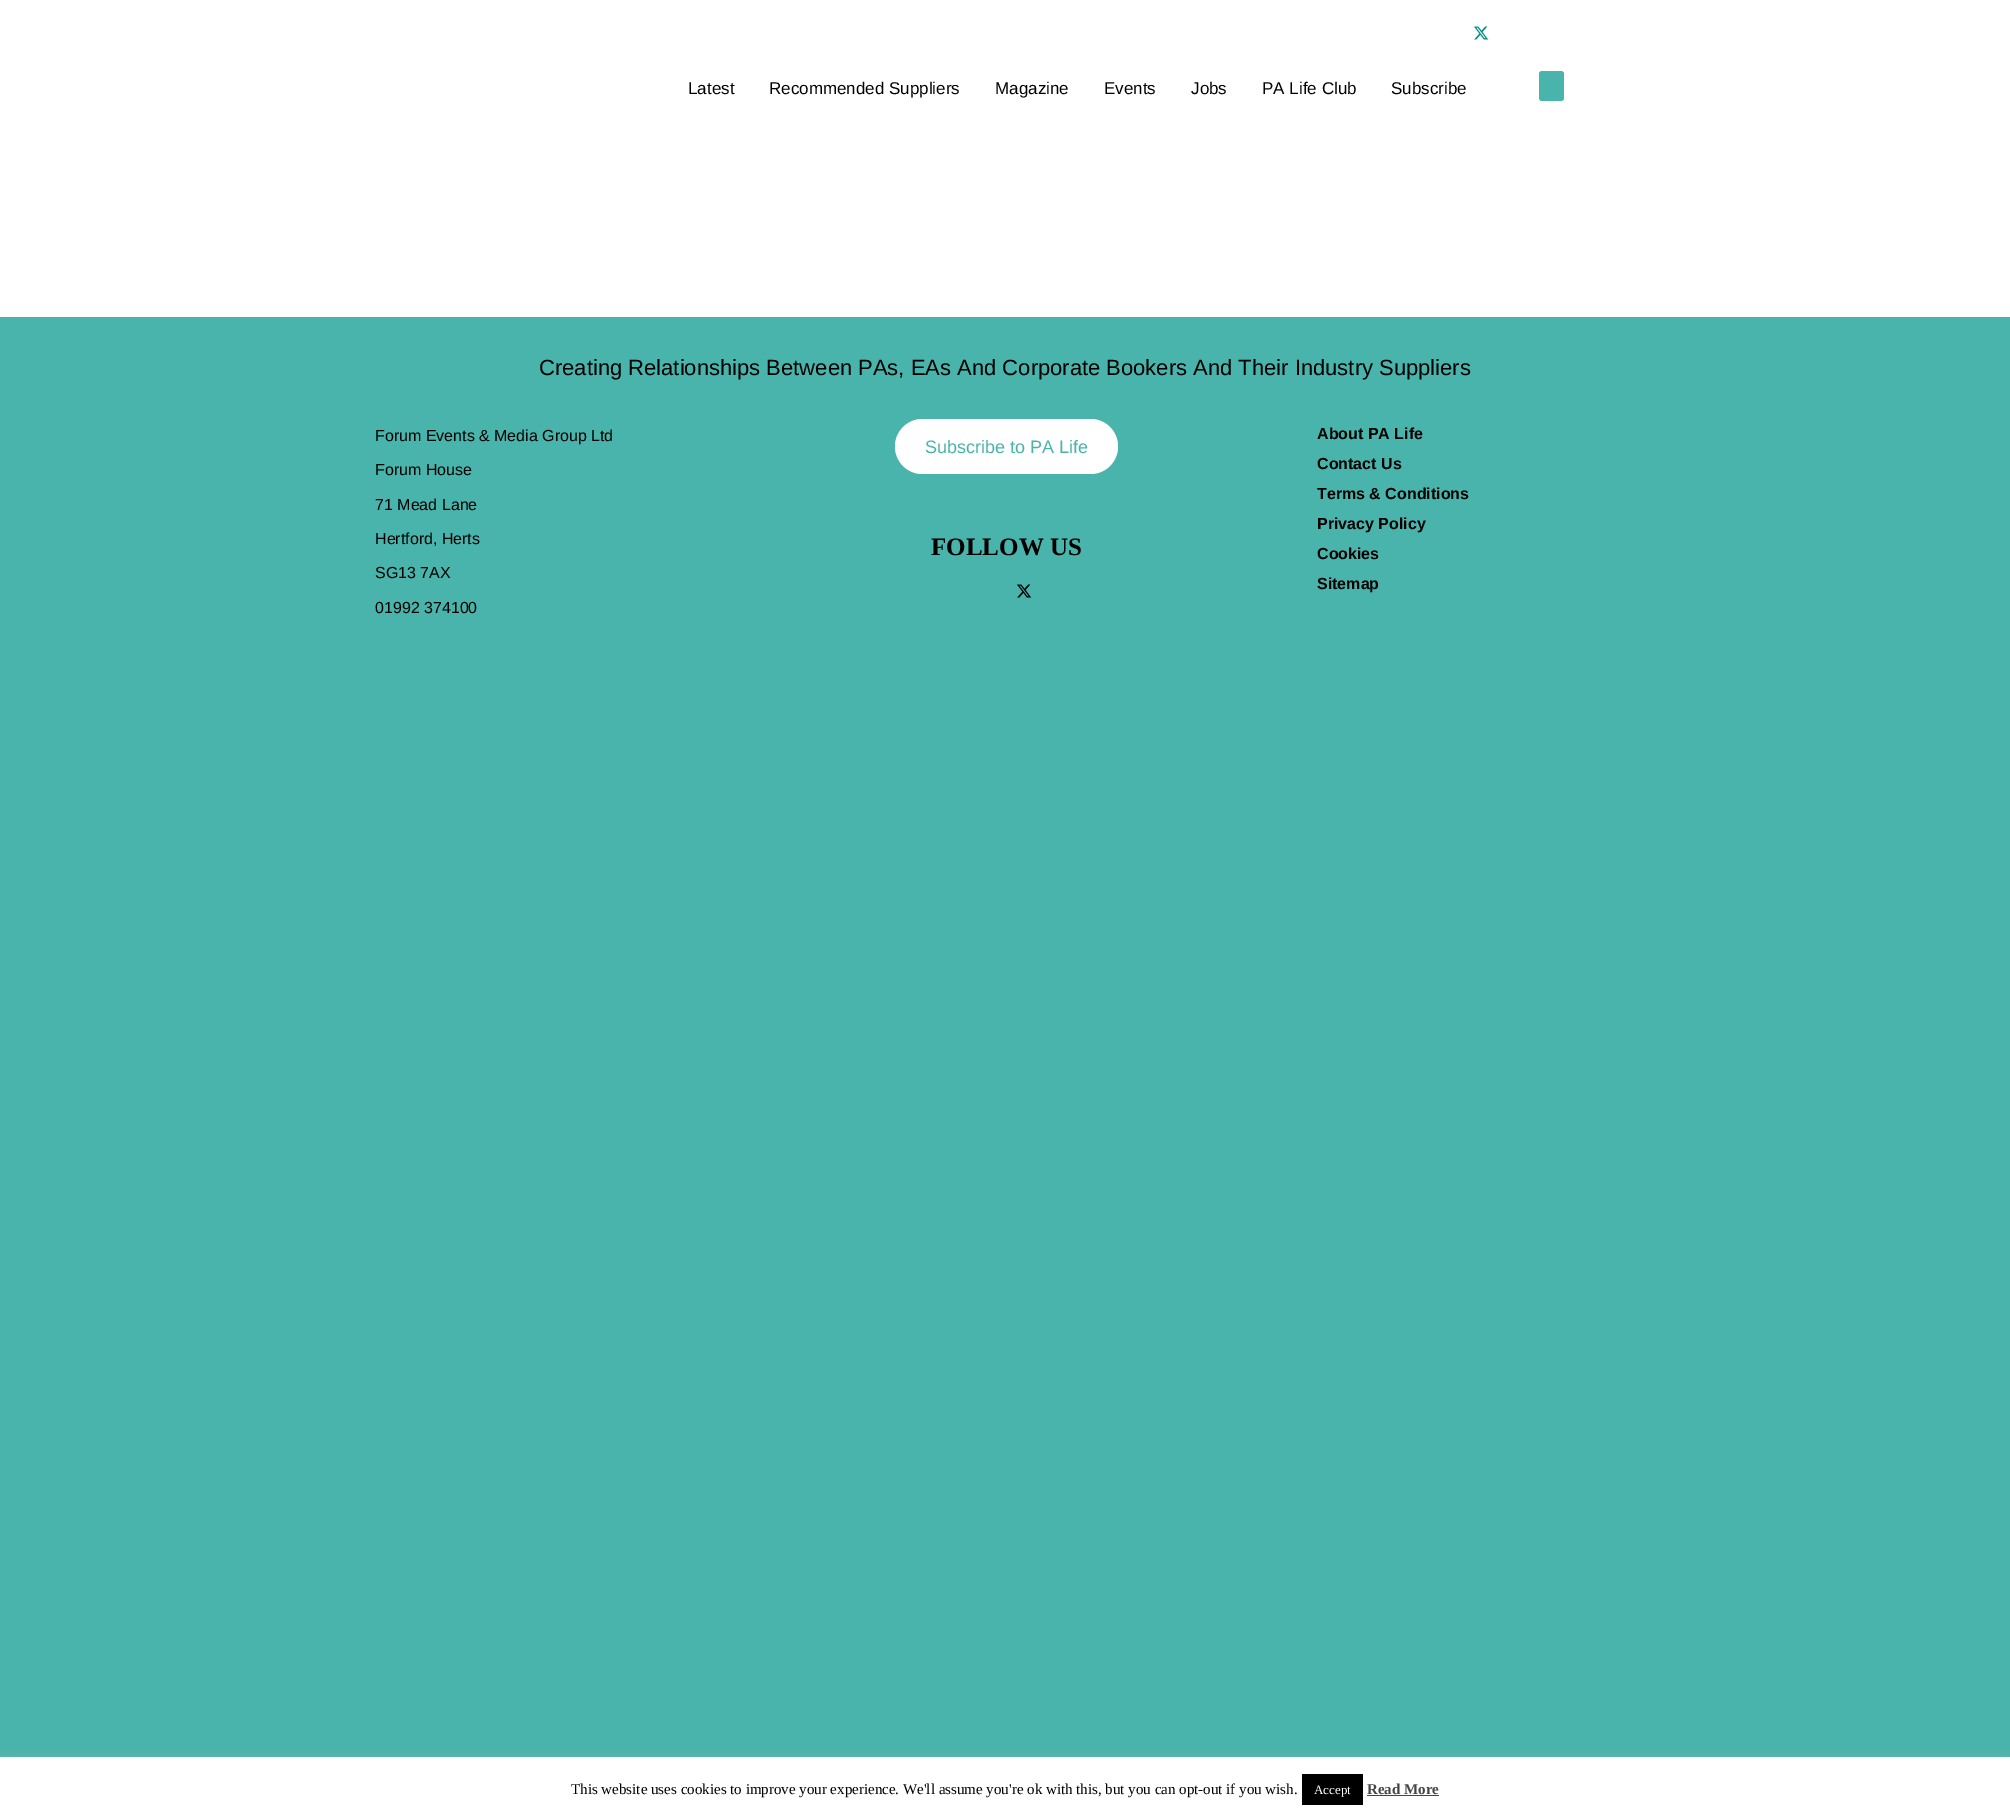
%!PS-Adobe-3.0
%%BoundingBox: 0 0 2010 1817
%%LanguageLevel: 3
%%Pages: 1
%%EndComments
%%BeginProlog
/setink { dup -16 bitshift 255 div exch dup -8 bitshift 255 and 255 div exch 255 and 255 div setrgbcolor } def
/usefont { [ exch dup neg 0 0 3 -1 roll 0 0 ] selectfont } def
/setalpha { dup .setfillconstantalpha .setstrokeconstantalpha } def
/rrect { 5 dict begin { /r /h /w /y /x } { exch def } forall
  x r add y moveto x w add y 2 copy h add r arct x w add y h add x 1 index r arct
  x y h add x y r arct x y 2 copy exch w add exch r arct closepath end } def
/softshadow { 12 dict begin { /a /b /q /h /w /y /x } { exch def } forall gsave /was 0 def
  9 -2 -9 { dup b mul 4 div /e exch def 1 sub .425 mul 2.718 exch exp 1 add a .99 .min exch div /now exch def
    1 1 now sub 1 was sub div sub setalpha /was now def
    w h .min e 2 mul add 0 gt { x e sub y e sub w e 2 mul add h e 2 mul add
      q e add b .6 mul add w h .min 2 div e add .min 0 .max rrect fill } if } for grestore end } def
/drawimage { 5 dict begin { /h /w /y /x /name } { exch def } forall
  gsave x y translate w h scale
  w h 8 [w 0 0 h 0 0] name (r) file false 3 colorimage grestore end } def
%%EndProlog
%%BeginSetup
<< /PageSize [2010 1817] /PageUsesTransparency true >> setpagedevice
%%EndSetup
%%Page: 1 1
0 .pushpdf14devicefilter
0 1817 translate 1 -1 scale
4 setmiterlimit
16#FFFFFF setink
0 0 2010 1817 rectfill
(img1.raw) 1474 26 15 14 drawimage
/LiberationSans-Regular 17 usefont
16#000000 setink
[
    [(Latest) 688 94]
    [(Recommended Suppliers) 769 94]
    [(Magazine) 995 94]
    [(Events) 1104 94]
    [(Jobs) 1191 94]
    [(PA Life Club) 1262 94]
    [(Subscribe) 1391 94]
] { aload pop moveto show } forall
16#49B4AB setink
1539 71 25 30 3 rrect fill
0 317 2010 1440 rectfill
/LiberationSans-Regular 22 usefont
16#000000 setink
539 375 moveto (Creating Relationships Between PAs, EAs And Corporate Bookers And Their Industry Suppliers) show
/LiberationSans-Regular 16 usefont
[
    [(Forum Events & Media Group Ltd) 375 441]
    [(Forum House) 375 475]
    [(71 Mead Lane) 375 510]
    [(Hertford, Herts) 375 544]
    [(SG13 7AX) 375 578]
    [(01992 374100) 375 613]
] { aload pop moveto show } forall
16#FFFFFF setink
895 419 223 55 27.5 rrect fill
/LiberationSans-Regular 18 usefont
16#49B4AB setink
925 453 moveto (Subscribe to PA Life) show
/LiberationSerif-Bold 25 usefont
16#000000 setink
931 555 moveto (FOLLOW US) show
(img2.raw) 1017 584 15 14 drawimage
/LiberationSans-Bold 16 usefont
[
    [(About PA Life) 1317 439]
    [(Contact Us) 1317 469]
    [(Terms & Conditions) 1317 499]
    [(Privacy Policy) 1317 529]
    [(Cookies) 1317 559]
    [(Sitemap) 1317 589]
] { aload pop moveto show } forall
16#ACABAB setink
0 1756 2010 60 0 5 0.3 softshadow
16#FFFFFF setink
0 1757 2010 60 rectfill
/LiberationSerif-Regular 15 usefont
16#000000 setink
571 1794 moveto (This website uses cookies to improve your experience. We'll assume you're ok with this, but you can opt-out if you wish.) show
1302 1774 61 31 rectfill
/LiberationSerif-Regular 13 usefont
16#FFFFFF setink
1314 1794 moveto (Accept) show
/LiberationSerif-Bold 15 usefont
16#444444 setink
1367 1794 moveto (Read More) show
1367 1795 72 1 rectfill
.poppdf14devicefilter showpage
%%EOF
